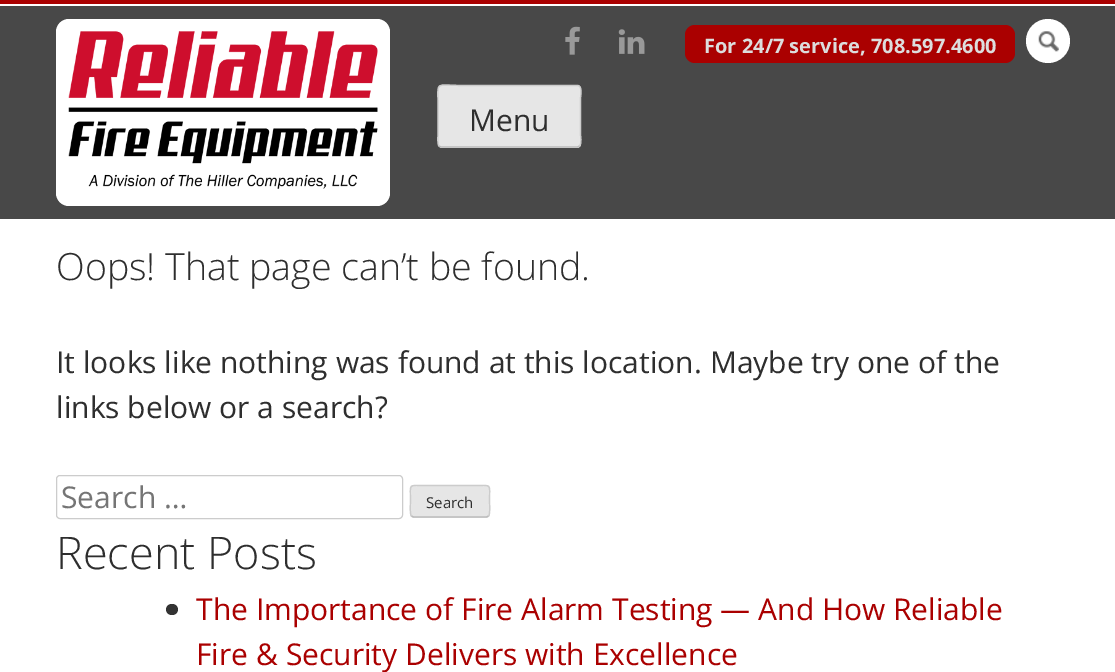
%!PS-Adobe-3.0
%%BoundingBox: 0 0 1115 672
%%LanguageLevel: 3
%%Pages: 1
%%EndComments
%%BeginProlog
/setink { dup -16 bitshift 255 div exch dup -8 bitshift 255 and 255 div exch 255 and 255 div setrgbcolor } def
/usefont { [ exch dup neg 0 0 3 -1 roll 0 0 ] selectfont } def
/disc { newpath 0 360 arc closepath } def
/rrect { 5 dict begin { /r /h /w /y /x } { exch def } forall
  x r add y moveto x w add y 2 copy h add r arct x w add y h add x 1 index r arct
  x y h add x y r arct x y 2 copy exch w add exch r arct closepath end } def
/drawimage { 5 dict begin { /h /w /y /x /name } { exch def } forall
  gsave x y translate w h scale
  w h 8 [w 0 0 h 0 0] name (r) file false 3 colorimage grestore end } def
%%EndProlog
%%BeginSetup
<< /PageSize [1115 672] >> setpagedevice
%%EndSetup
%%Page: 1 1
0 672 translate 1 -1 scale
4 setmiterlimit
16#FFFFFF setink
0 0 1115 672 rectfill
16#AA0000 setink
0 0 1115 4 rectfill
16#484848 setink
0 6 1115 213 rectfill
16#FFFFFF setink
56 19 334 187 13 rrect fill
(img1.raw) 68 31 310 158 drawimage
(img2.raw) 565 26 15 29 drawimage
(img3.raw) 618 29 27 25 drawimage
16#AA0000 setink
685 25 330 38 10 rrect fill
/OpenSans-Bold 20 usefont
16#DDDDDD setink
704 53 moveto (For 24/7 service, 708.597.4600) show
16#FFFFFF setink
1048 41 22 disc fill
(img4.raw) 1038 31 21 21 drawimage
16#E6E6E6 setink
438 85 143 63 4 rrect fill
16#BBBBBB setink
1.2 setlinewidth
579.5 146 moveto 577.5 147 lineto 441 147 lineto 439 146 lineto stroke
16#CCCCCC setink
439 146 moveto 437 143.5 438 135.5 438 134.5 curveto 438 107 lineto 438 79.5 433.5 85.5 464 85.5 curveto 577.5 85.5 lineto 583 85.5 580.5 97 580.5 98 curveto 580.5 134.5 lineto 580.5 135.5 582 143.5 579.5 146 curveto stroke
/OpenSans-Regular 30 usefont
16#2E2E2E setink
469 131 moveto (Menu) show
/OpenSans-Light 37.5 usefont
56 280 moveto (Oops! That page can’t be found.) show
/OpenSans-Regular 30 usefont
56 373 moveto (It looks like nothing was found at this location. Maybe try one of the) show
56 418 moveto (links below or a search?) show
16#CCCCCC setink
1 setlinewidth
56.5 475.5 346 43 3.5 rrect stroke
16#757575 setink
61 508 moveto (Search …) show
16#E6E6E6 setink
410 485 80 33 4 rrect fill
16#BBBBBB setink
1.2 setlinewidth
488.5 516 moveto 486.5 517 lineto 413.5 517 lineto 411.5 516 lineto stroke
16#CCCCCC setink
411.5 516 moveto 409.5 514 410.5 504 410.5 501 curveto 410.5 483 407.5 485.5 426 485.5 curveto 474 485.5 lineto 492.5 485.5 489.5 483 489.5 501 curveto 489.5 504 490.5 514 488.5 516 curveto stroke
/OpenSans-Regular 15 usefont
16#2E2E2E setink
426 508 moveto (Search) show
/OpenSans-Light 45 usefont
56 569 moveto (Recent Posts) show
16#333333 setink
166 604 12 11 5.5 rrect fill
/OpenSans-Regular 30 usefont
16#AA0000 setink
196 620 moveto (The Importance of Fire Alarm Testing — And How Reliable) show
196 665 moveto (Fire & Security Delivers with Excellence) show
showpage
%%EOF
